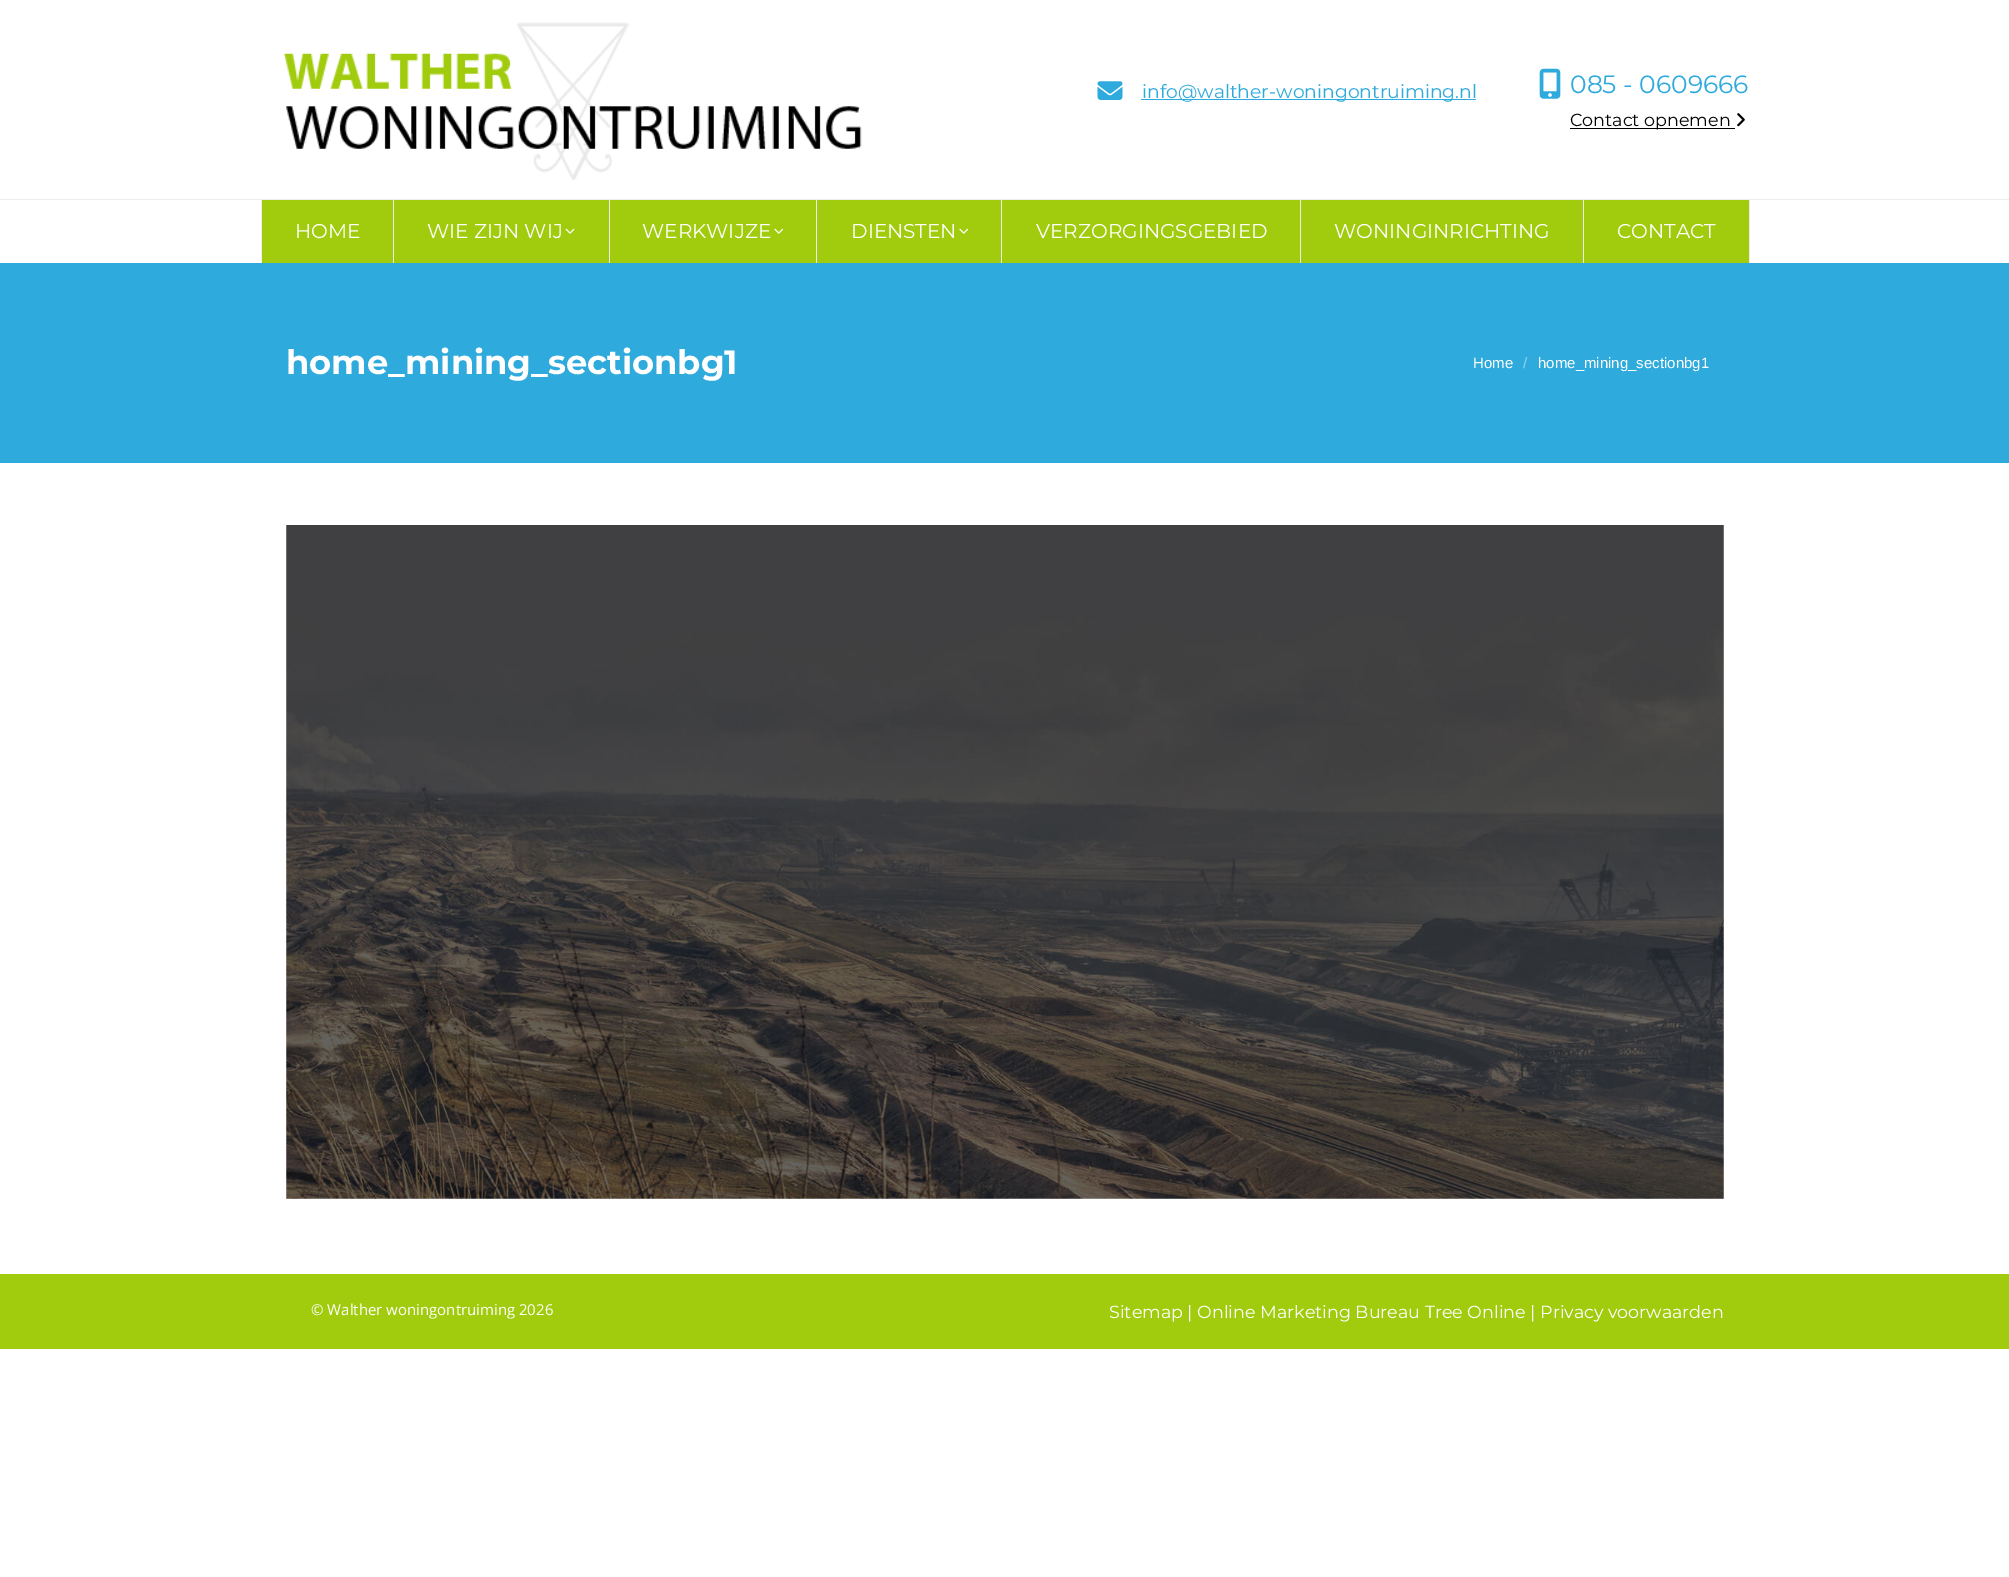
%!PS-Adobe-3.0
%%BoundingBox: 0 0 2009 1577
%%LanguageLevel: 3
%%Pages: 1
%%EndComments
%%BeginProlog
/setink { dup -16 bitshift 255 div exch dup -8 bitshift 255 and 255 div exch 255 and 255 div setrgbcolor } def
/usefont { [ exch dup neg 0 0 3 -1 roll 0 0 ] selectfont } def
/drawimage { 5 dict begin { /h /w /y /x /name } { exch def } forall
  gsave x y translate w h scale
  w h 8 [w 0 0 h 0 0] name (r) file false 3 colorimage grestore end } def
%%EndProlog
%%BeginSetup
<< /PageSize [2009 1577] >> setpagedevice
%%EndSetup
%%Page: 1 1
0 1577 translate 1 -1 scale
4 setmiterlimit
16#FFFFFF setink
0 0 2009 1577 rectfill
(img1.raw) 283 22 579 158 drawimage
(img2.raw) 1097 81 26 19 drawimage
16#2EAADC setink
1141 99 335 1 rectfill
/Montserrat-Regular 18.75 usefont
1142 98 moveto (info@walther-woningontruiming.nl) show
(img3.raw) 1539 68 22 31 drawimage
/Montserrat-Regular 25 usefont
1570 93 moveto (085 - 0609666) show
16#000000 setink
1570 128 165 1 rectfill
/Montserrat-Regular 17.5 usefont
1570 126 moveto (Contact opnemen) show
(img4.raw) 1737 113 8 14 drawimage
[
    [0 199 2009 1 16#EDEDED]
    [262 200 1487 63 16#A1CC0E]
    [261 200 1 63 16#EDEDED]
] { aload pop setink rectfill } forall
/Montserrat-Regular 20 usefont
16#FFFFFF setink
295 238 moveto (HOME) show
16#EDEDED setink
393 200 1 63 rectfill
16#FFFFFF setink
427 238 moveto (WIE ZIJN WIJ) show
(img5.raw) 565 228 10 6 drawimage
16#EDEDED setink
609 200 1 63 rectfill
16#FFFFFF setink
642 238 moveto (WERKWIJZE) show
(img6.raw) 774 228 10 6 drawimage
16#EDEDED setink
816 200 1 63 rectfill
16#FFFFFF setink
851 238 moveto (DIENSTEN) show
(img6.raw) 959 228 10 6 drawimage
16#EDEDED setink
1001 200 1 63 rectfill
16#FFFFFF setink
1036 238 moveto (VERZORGINGSGEBIED) show
16#EDEDED setink
1300 200 1 63 rectfill
16#FFFFFF setink
1334 238 moveto (WONINGINRICHTING) show
16#EDEDED setink
1583 200 1 63 rectfill
16#FFFFFF setink
1617 238 moveto (CONTACT) show
16#EDEDED setink
1749 200 1 63 rectfill
16#2EAADC setink
0 263 2009 200 rectfill
/Montserrat-Bold 33.75 usefont
16#FFFFFF setink
286 374 moveto (home_mining_sectionbg1) show
/LiberationSans-Regular 15 usefont
1473 368 moveto (Home) show
16#97D5EE setink
1523 368 moveto (/) show
16#FFFFFF setink
1538 368 moveto (home_mining_sectionbg1) show
(img7.raw) 286 525 1438 674 drawimage
16#A1CC0E setink
0 1274 2009 75 rectfill
/OpenSans-Regular 15 usefont
16#FFFFFF setink
311 1315 moveto (© Walther woningontruiming 2026) show
/Montserrat-Regular 17.5 usefont
1109 1318 moveto (Sitemap | Online Marketing Bureau Tree Online | Privacy voorwaarden) show
showpage
%%EOF
